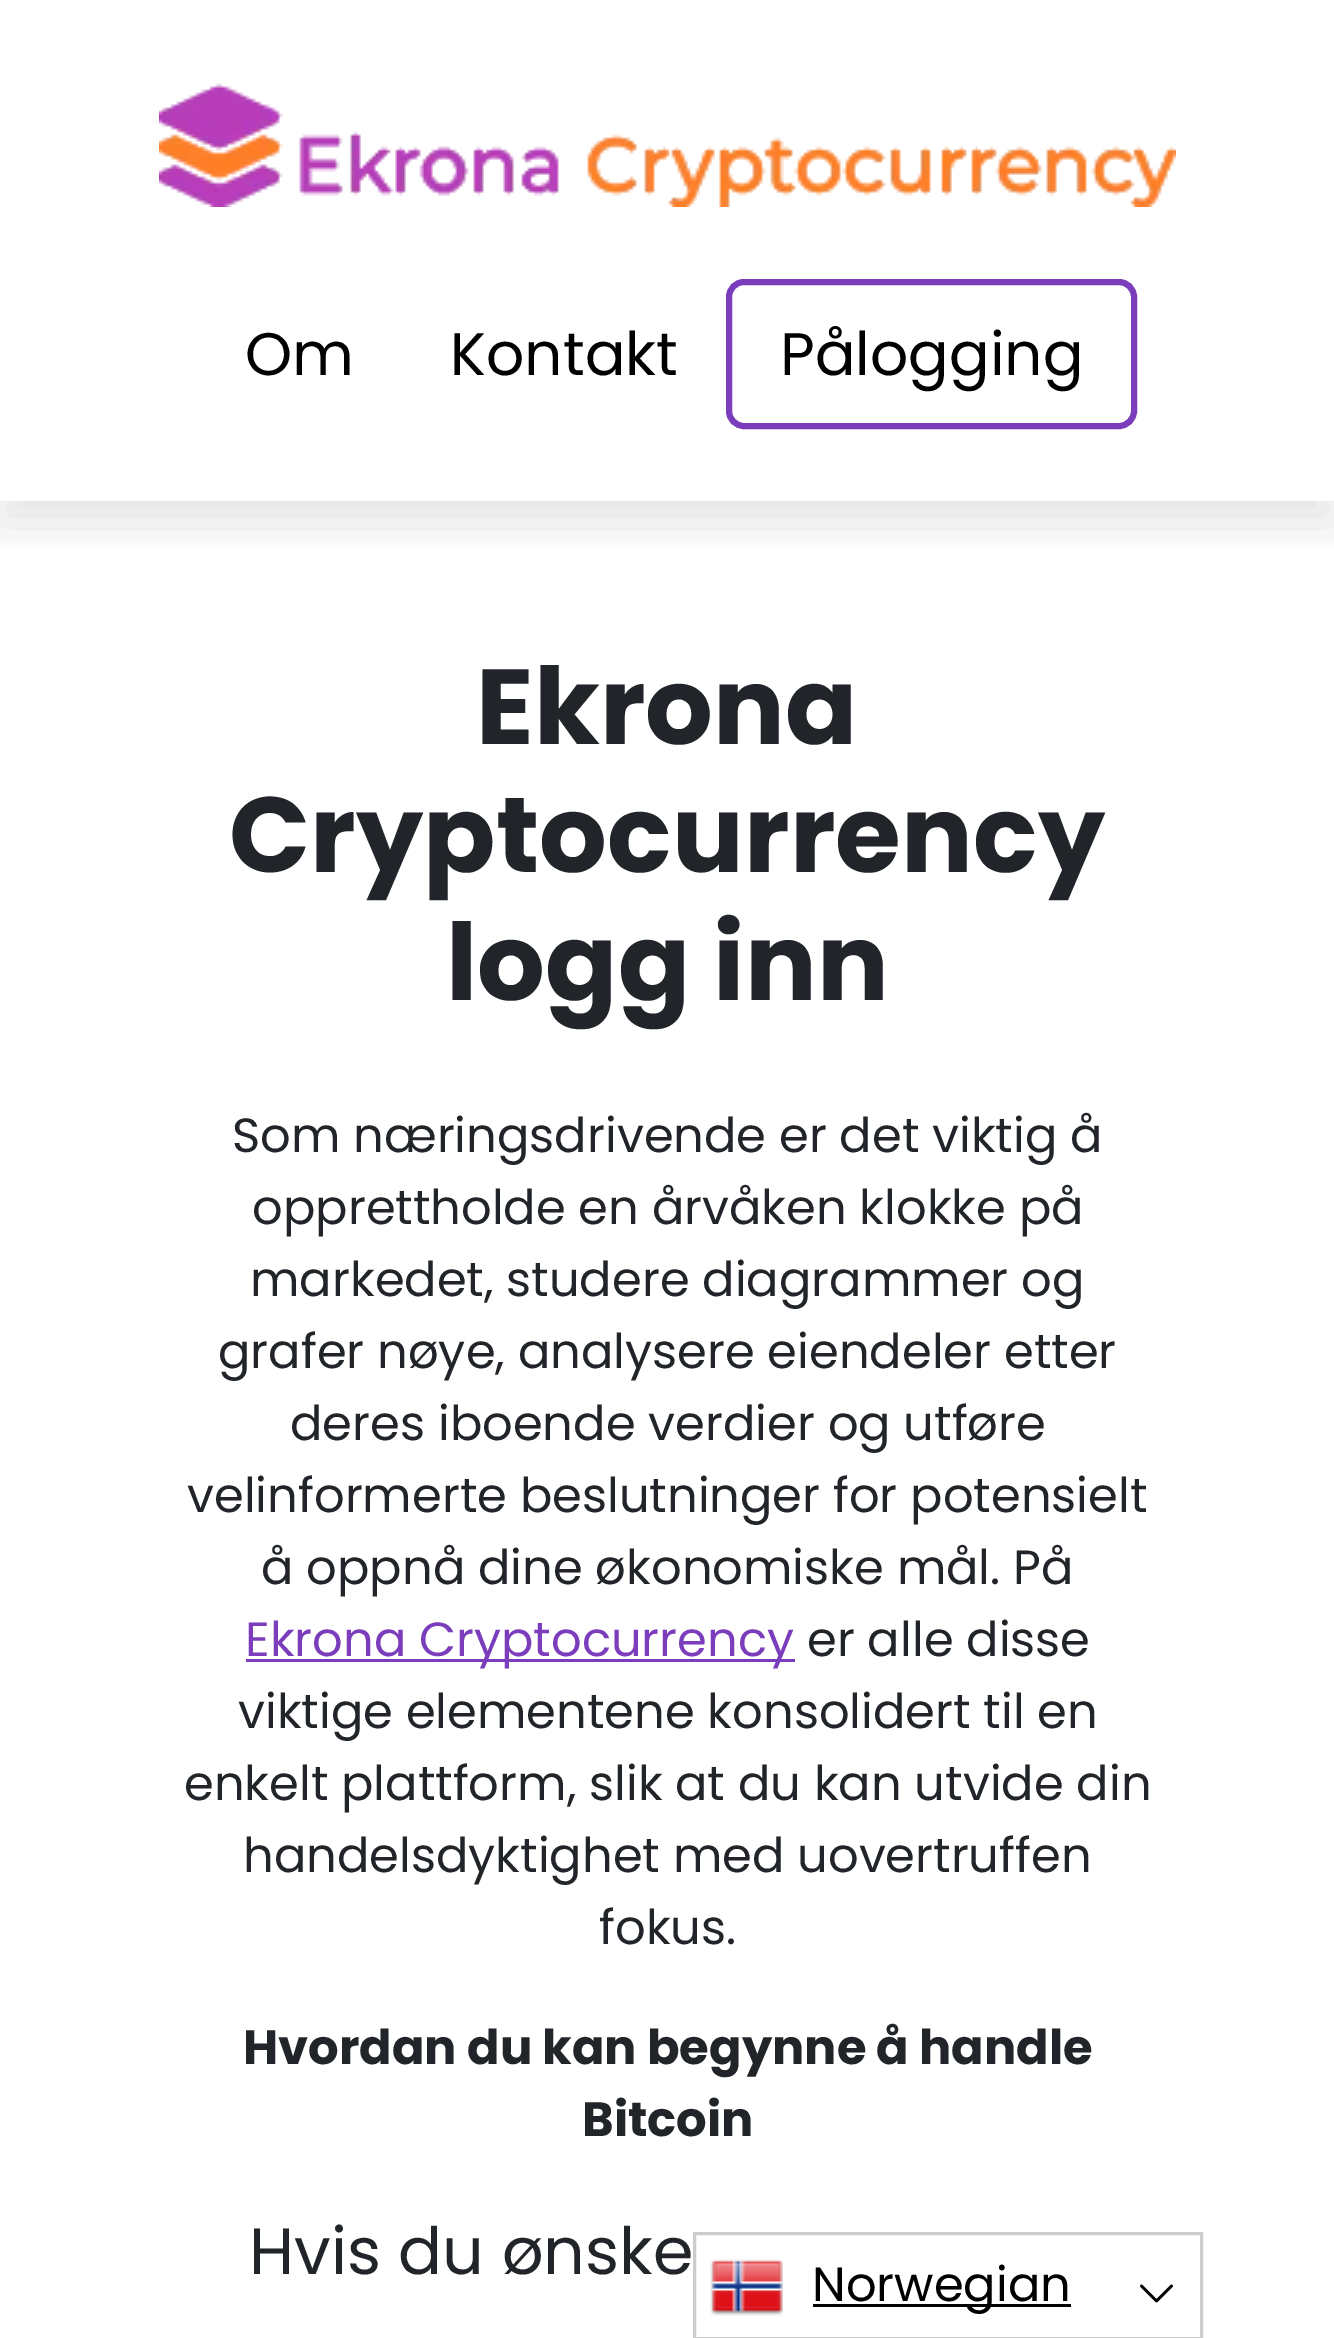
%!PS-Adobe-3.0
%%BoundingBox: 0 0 1334 2338
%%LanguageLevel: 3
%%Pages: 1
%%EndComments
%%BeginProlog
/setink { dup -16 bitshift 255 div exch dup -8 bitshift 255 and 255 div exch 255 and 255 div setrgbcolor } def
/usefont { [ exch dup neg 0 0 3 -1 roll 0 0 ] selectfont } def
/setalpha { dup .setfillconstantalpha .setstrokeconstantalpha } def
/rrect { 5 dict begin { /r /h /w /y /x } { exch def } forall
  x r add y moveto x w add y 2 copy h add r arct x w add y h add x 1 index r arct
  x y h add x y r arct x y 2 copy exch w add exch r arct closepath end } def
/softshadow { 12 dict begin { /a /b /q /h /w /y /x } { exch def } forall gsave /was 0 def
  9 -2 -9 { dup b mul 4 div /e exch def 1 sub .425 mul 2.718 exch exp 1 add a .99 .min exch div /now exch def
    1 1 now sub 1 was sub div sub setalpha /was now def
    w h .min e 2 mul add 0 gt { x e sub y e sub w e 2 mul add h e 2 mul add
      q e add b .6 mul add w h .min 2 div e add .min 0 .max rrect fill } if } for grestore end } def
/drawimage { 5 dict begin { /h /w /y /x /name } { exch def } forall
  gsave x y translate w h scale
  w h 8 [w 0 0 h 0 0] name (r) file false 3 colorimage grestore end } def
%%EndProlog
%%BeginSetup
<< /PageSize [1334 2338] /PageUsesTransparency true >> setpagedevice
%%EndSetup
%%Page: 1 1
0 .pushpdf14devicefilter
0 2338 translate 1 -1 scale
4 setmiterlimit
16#FFFFFF setink
0 0 1334 2338 rectfill
gsave
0 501 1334 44 rectclip
16#000000 setink
0 24 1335 501 0 24 0.1 softshadow
grestore
(img1.raw) 159 83 1017 124 drawimage
/Poppins-Regular 60 usefont
16#000000 setink
245 375 moveto (Om) show
450 375 moveto (Kontakt) show
16#7B3DBB setink
6 setlinewidth
729 282 405 144 15 rrect stroke
16#000000 setink
780 375 moveto (Pålogging) show
/Poppins-Bold 106.75 usefont
16#212529 setink
[
    [(Ekrona) 476 744]
    [(Cryptocurrency) 229 872]
    [(logg inn) 446 1000]
] { aload pop moveto show } forall
/Poppins-Regular 48 usefont
[
    [(Som næringsdrivende er det viktig å) 232 1152]
    [(opprettholde en årvåken klokke på) 252 1224]
    [(markedet, studere diagrammer og) 250 1296]
    [(grafer nøye, analysere eiendeler etter) 218 1368]
    [(deres iboende verdier og utføre) 290 1440]
    [(velinformerte beslutninger for potensielt) 187 1512]
    [(å oppnå dine økonomiske mål. På) 261 1584]
] { aload pop moveto show } forall
16#7B3DBB setink
246 1659 549 3 rectfill
245 1656 moveto (Ekrona Cryptocurrency) show
16#212529 setink
[
    [(er alle disse) 807 1656]
    [(viktige elementene konsolidert til en) 238 1728]
    [(enkelt plattform, slik at du kan utvide din) 184 1800]
    [(handelsdyktighet med uovertruffen) 243 1872]
    [(fokus.) 599 1944]
] { aload pop moveto show } forall
/Poppins-Bold 48 usefont
243 2064 moveto (Hvordan du kan begynne å handle) show
582 2136 moveto (Bitcoin) show
/Poppins-Regular 65.25 usefont
249 2274 moveto (Hvis du ønske) show
16#CCCCCC setink
3 setlinewidth
694.5 2233.5 507 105 rectstroke
(img2.raw) 710 2259 73 57 drawimage
16#000000 setink
813 2304 258 3 rectfill
/Poppins-Regular 48 usefont
812 2301 moveto (Norwegian) show
(img3.raw) 1140 2284 33 19 drawimage
.poppdf14devicefilter showpage
%%EOF
